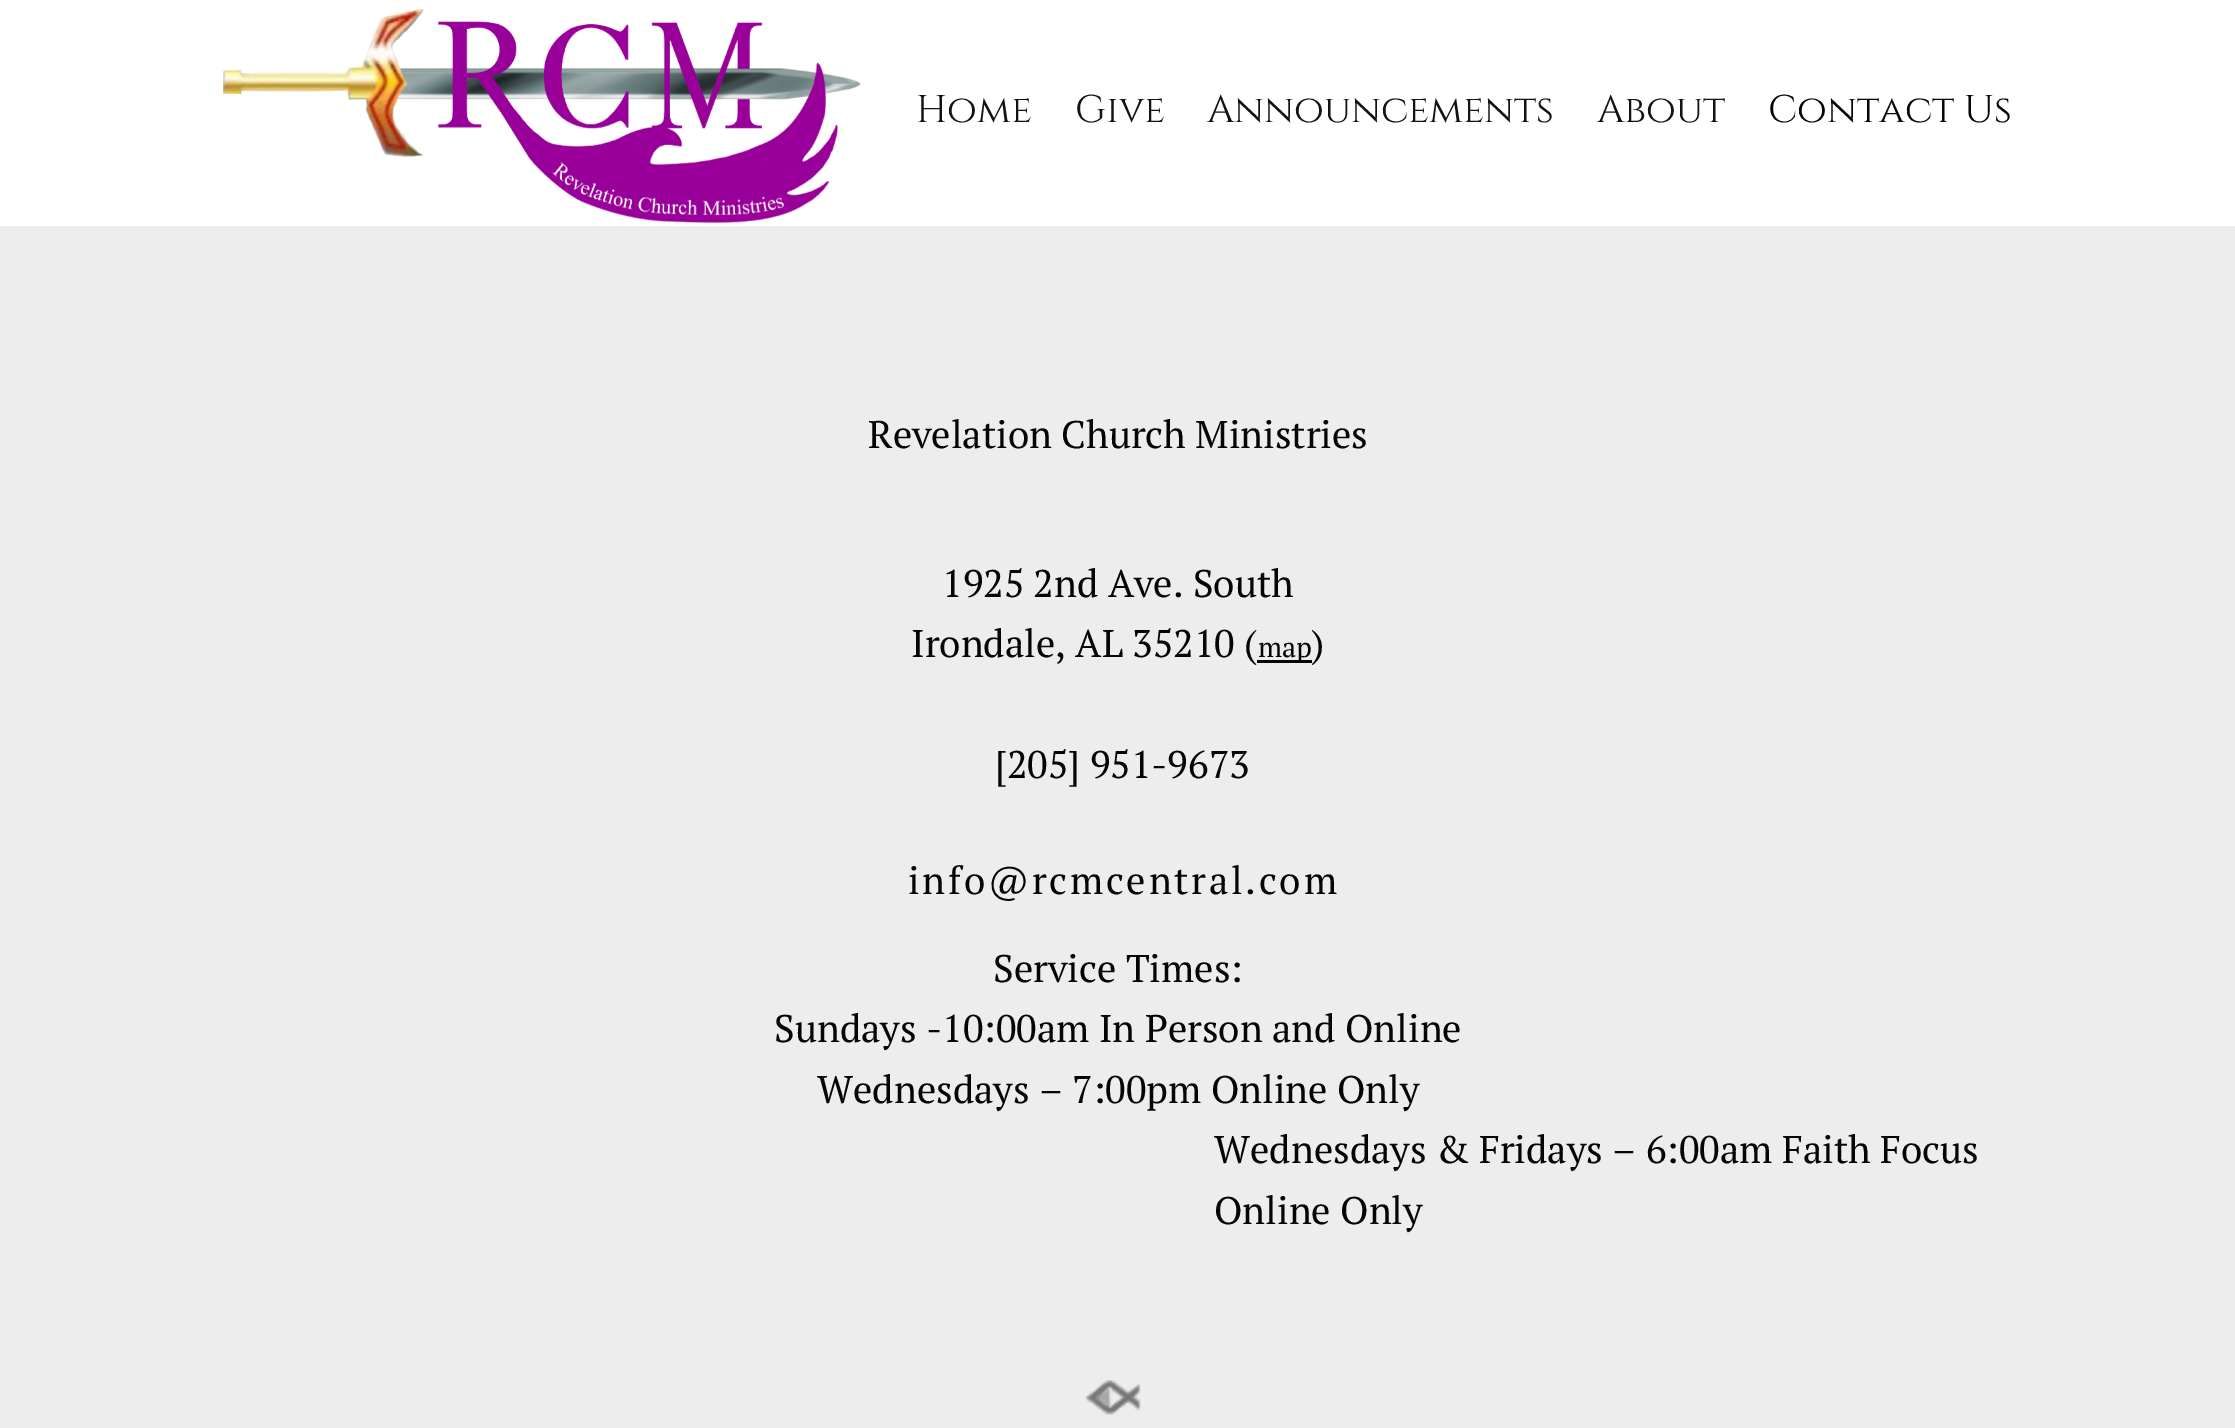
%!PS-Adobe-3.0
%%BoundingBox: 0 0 2235 1428
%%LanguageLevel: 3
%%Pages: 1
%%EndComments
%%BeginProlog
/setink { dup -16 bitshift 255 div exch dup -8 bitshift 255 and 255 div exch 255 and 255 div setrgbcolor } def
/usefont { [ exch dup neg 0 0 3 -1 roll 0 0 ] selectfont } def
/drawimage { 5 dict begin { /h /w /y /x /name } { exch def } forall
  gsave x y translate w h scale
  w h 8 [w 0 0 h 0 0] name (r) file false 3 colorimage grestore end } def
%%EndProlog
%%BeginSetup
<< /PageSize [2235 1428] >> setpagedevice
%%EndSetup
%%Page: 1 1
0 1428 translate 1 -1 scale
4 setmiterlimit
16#EDEDED setink
0 0 2235 1428 rectfill
16#FFFFFF setink
0 0 2235 226 rectfill
(img1.raw) 223 9 638 214 drawimage
/Cinzel-Regular 38.5 usefont
16#121212 setink
[
    [(Home) 916 122]
    [(Give) 1075 122]
    [(Announcements) 1207 122]
    [(About) 1597 122]
] { aload pop moveto show } forall
16#050505 setink
1768 122 moveto (Contact Us) show
/PTSerif-Regular 38.5 usefont
[
    [(Revelation Church Ministries) 868 448]
    [(1925 2nd Ave. South) 942 597]
    [(Irondale, AL 35210 \() 911 657]
] { aload pop moveto show } forall
1257 660 55 3 rectfill
/PTSerif-Regular 28 usefont
1258 657 moveto (map) show
/PTSerif-Regular 38.5 usefont
1311 657 moveto (\)) show
995 778 moveto ([205] 951-9673) show
908 894 moveto 2.75 0 (info@rcmcentral.com) ashow
[
    [(Service Times:) 993 982]
    [(Sundays -10:00am In Person and Online) 774 1042]
    [(Wednesdays – 7:00pm Online Only) 817 1103]
    [(Wednesdays & Fridays – 6:00am Faith Focus) 1214 1163]
    [(Online Only) 1214 1224]
] { aload pop moveto show } forall
(img2.raw) 1085 1380 56 35 drawimage
showpage
%%EOF
